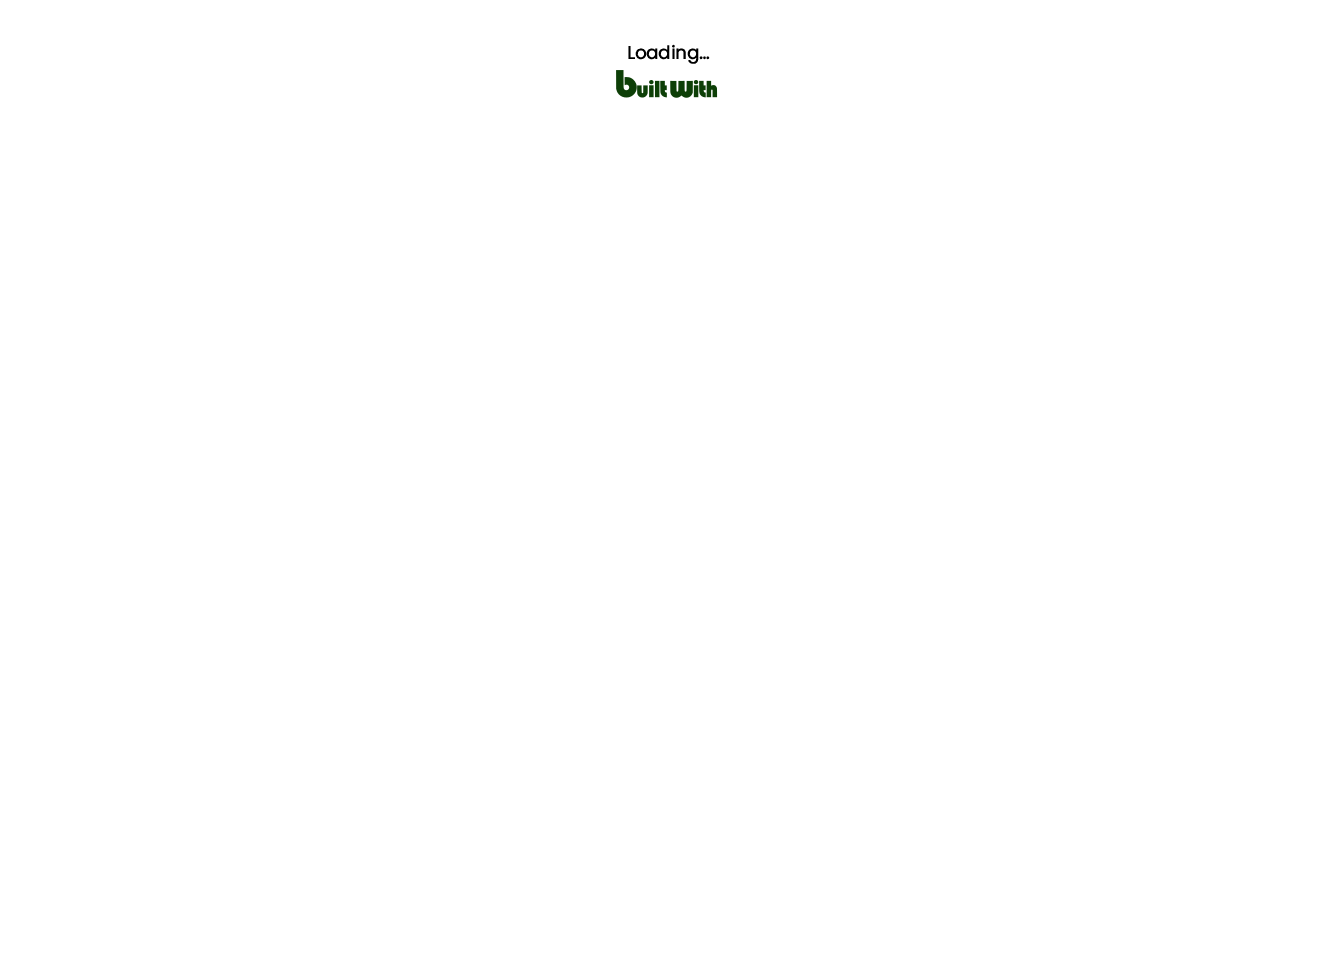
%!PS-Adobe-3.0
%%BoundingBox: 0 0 1336 961
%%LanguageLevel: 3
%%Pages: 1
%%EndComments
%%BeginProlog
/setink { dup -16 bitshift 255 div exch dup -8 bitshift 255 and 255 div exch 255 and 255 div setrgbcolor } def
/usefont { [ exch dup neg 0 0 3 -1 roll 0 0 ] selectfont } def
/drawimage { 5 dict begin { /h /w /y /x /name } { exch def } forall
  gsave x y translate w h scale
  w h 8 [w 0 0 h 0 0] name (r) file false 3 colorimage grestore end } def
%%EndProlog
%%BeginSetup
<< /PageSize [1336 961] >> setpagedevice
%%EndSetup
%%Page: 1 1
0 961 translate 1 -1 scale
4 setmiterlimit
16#FFFFFF setink
0 0 1336 961 rectfill
/Poppins-Bold 18 usefont
16#000000 setink
627 59 moveto (Loading…) show
(img1.raw) 616 70 102 28 drawimage
showpage
%%EOF
